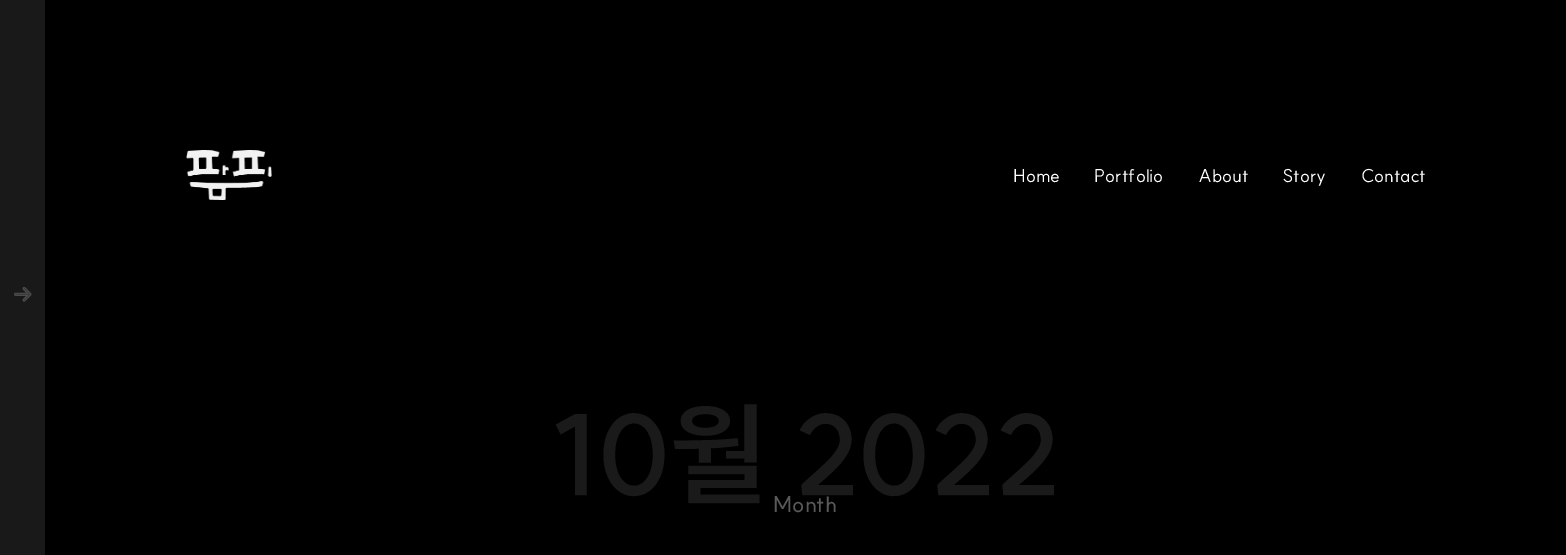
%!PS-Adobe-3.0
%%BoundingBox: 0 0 1566 555
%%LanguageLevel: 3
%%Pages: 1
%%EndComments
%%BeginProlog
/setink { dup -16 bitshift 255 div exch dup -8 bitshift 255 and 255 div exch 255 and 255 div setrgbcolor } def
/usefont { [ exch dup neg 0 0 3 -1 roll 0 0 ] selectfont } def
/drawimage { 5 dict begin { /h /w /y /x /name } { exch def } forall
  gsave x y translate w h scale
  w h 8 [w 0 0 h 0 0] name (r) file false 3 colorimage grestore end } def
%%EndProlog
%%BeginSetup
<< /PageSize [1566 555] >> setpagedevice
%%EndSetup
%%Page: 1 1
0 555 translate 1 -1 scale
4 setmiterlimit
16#000000 setink
0 0 1566 555 rectfill
16#191919 setink
0 0 45 555 rectfill
(img1.raw) 14 287 18 15 drawimage
(img2.raw) 186 150 86 50 drawimage
/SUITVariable-Regular 18 usefont
16#FFFFFF setink
[
    [(Home) 1013 182]
    [(Portfolio) 1094 182]
    [(About) 1198 182]
    [(Story) 1282 182]
    [(Contact) 1361 182]
] { aload pop moveto show } forall
/SUITVariable-Bold 112 usefont
16#1A1A1A setink
551 495 moveto (10월 2022) show
/SUITVariable-Medium 22 usefont
16#595959 setink
773 512 moveto (Month) show
showpage
%%EOF
